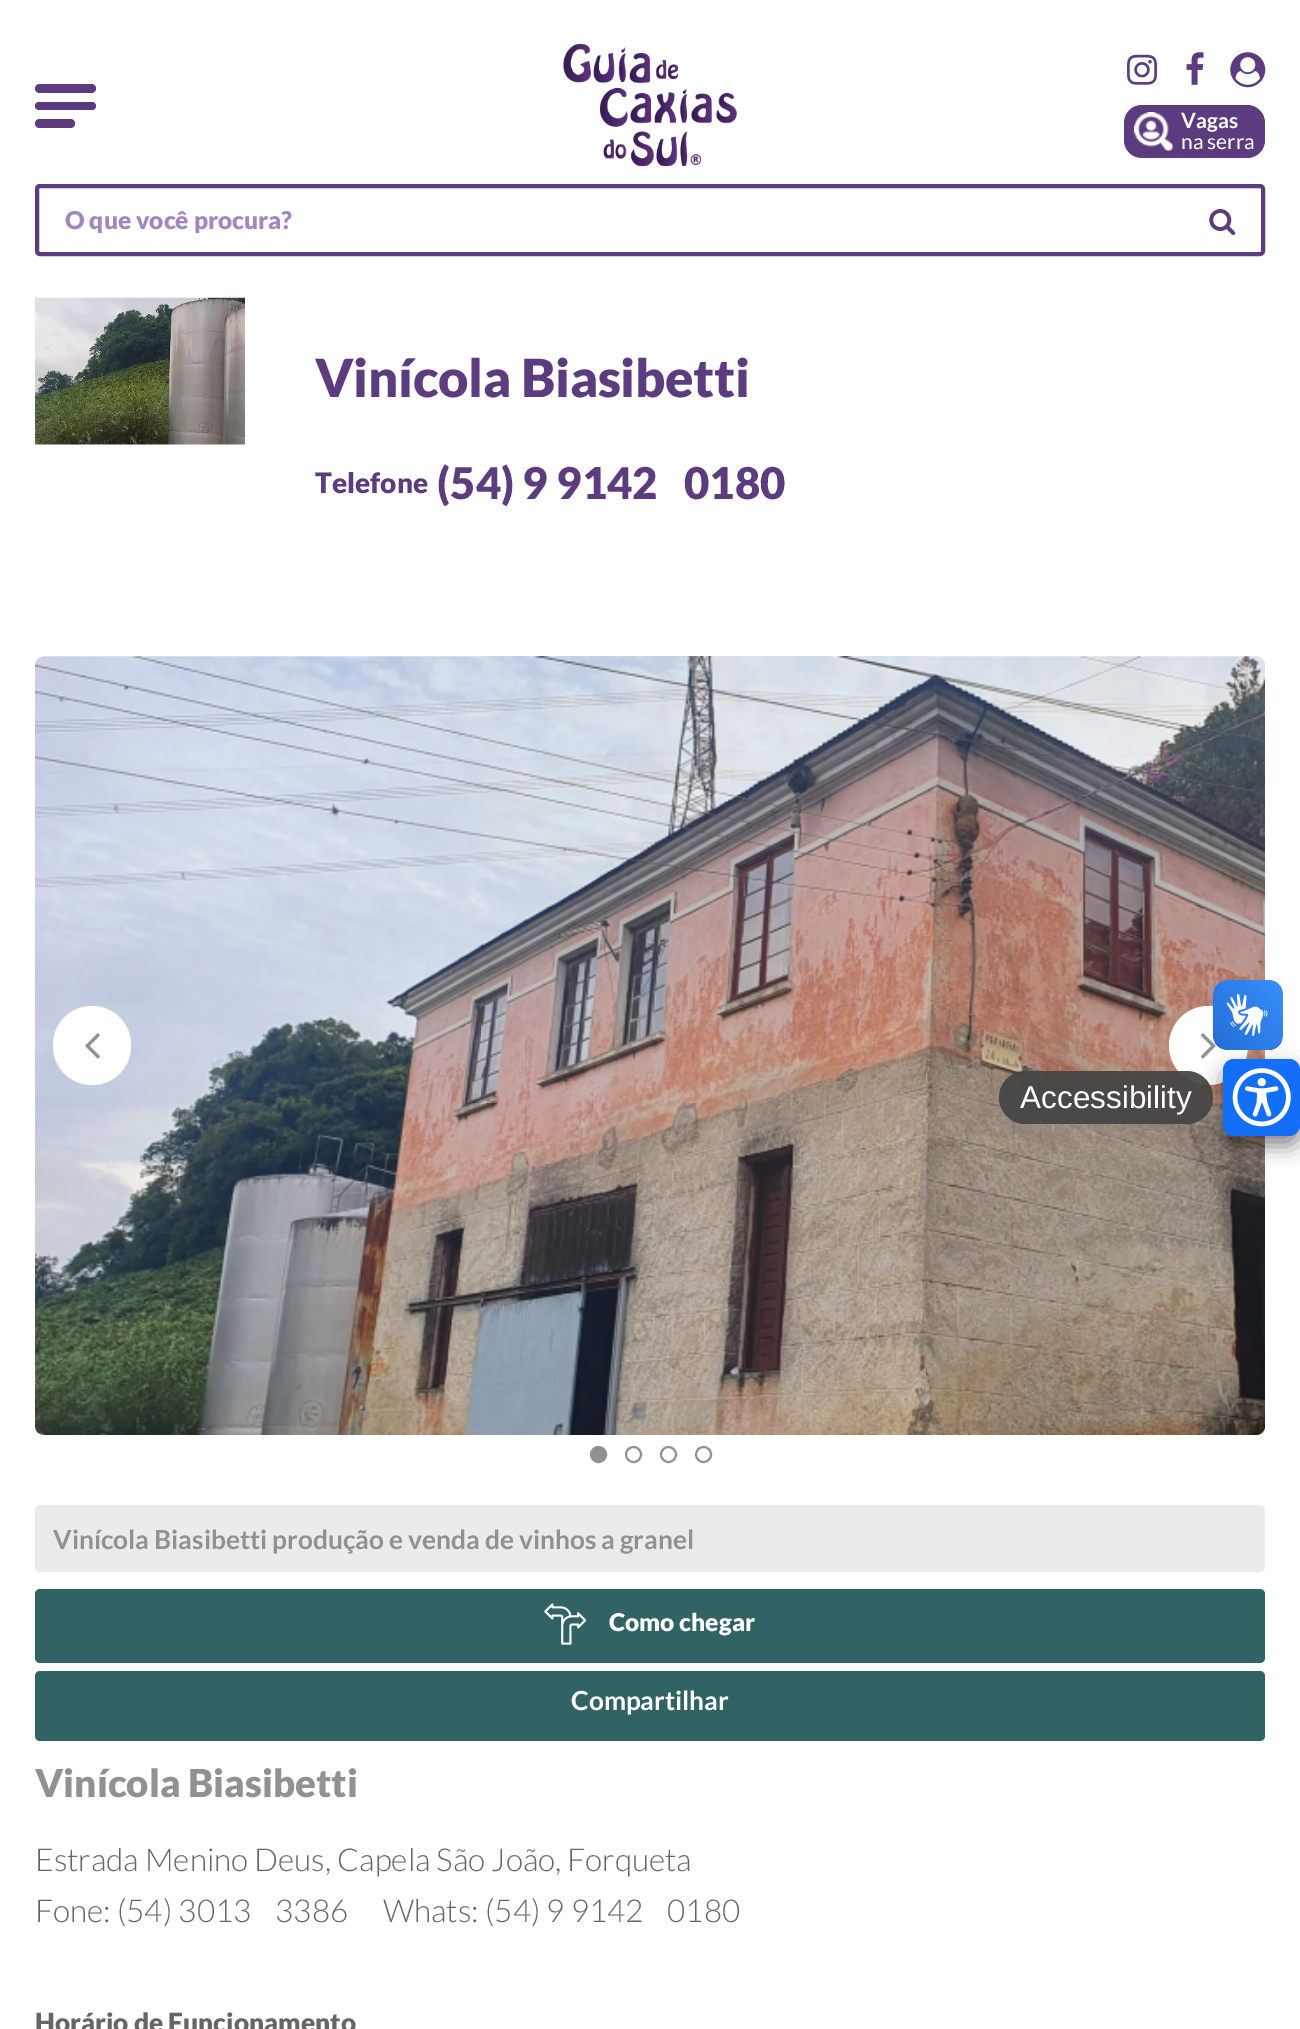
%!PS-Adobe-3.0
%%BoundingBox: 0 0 1300 2029
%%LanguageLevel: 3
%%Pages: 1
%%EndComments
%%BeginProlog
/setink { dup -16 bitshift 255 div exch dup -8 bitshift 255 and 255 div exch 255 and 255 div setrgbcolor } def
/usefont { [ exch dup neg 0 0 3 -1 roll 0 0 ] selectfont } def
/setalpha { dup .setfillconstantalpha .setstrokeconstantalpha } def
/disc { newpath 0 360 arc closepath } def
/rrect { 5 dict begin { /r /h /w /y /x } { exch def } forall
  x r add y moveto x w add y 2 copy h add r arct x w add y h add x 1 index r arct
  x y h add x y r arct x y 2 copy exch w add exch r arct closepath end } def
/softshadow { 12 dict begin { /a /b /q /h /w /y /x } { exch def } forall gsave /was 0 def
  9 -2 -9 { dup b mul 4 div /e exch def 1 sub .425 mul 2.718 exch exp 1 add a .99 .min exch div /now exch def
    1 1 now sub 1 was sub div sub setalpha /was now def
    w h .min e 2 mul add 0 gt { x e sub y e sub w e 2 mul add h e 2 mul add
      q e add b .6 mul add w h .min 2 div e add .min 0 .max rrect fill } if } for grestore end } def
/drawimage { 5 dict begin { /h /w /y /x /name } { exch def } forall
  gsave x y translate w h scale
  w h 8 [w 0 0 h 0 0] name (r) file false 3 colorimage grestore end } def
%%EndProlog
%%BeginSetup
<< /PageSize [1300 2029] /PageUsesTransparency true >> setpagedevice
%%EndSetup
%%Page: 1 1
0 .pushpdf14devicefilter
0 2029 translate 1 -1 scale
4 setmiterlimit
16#FFFFFF setink
0 0 1300 2029 rectfill
16#5C3B7E setink
35 84 61 9 4.5 rrect fill
35 102 61 8 4 rrect fill
35 119 40 9 4.5 rrect fill
(img1.raw) 563 43 174 124 drawimage
(img2.raw) 1127 54 30 31 drawimage
(img3.raw) 1186 52 18 33 drawimage
(img4.raw) 1230 52 36 36 drawimage
1124 105 141 53 18 rrect fill
(img5.raw) 1134 112 39 39 drawimage
/Lato-Bold 21 usefont
16#FFFFFF setink
1181 128 moveto (Vagas) show
/Lato-Regular 21 usefont
1181 149 moveto (na serra) show
(img6.raw) 1209 209 27 26 drawimage
16#5C3B7E setink
4 setlinewidth
37 186 1226 68 3 rrect stroke
/Lato-Black 24.5 usefont
16#A286BF setink
65 229 moveto (O que você procura?) show
(img7.raw) 35 297 210 148 drawimage
/Lato-Black 52.5 usefont
16#5C3B7E setink
315 397 moveto -0.3 0 (Vinícola Biasibetti) ashow
/Lato-Black 28 usefont
315 493 moveto (Telefone) show
/Lato-Black 43.75 usefont
437 499 moveto (\(54\) 9 9142) show
684 499 moveto (0180) show
(img8.raw) 35 656 1230 779 drawimage
16#FFFFFF setink
53 1006 78 79 39 rrect fill
(img9.raw) 85 1033 15 26 drawimage
1208.5 1045.5 39.5 disc fill
(img10.raw) 1200 1033 16 26 drawimage
16#919191 setink
598.5 1454.5 7.5 disc gsave fill grestore
2 setlinewidth
stroke
633.5 1454.5 7.5 disc stroke
668.5 1454.5 7.5 disc stroke
703.5 1454.5 7.5 disc stroke
16#EBEBEB setink
35 1505 1230 67 5 rrect fill
/Lato-Bold 26.25 usefont
16#919191 setink
53 1549 moveto (Vinícola Biasibetti produção e venda de vinhos a granel) show
16#316364 setink
35 1589 1230 74 5 rrect fill
(img11.raw) 544 1603 42 42 drawimage
/Lato-Black 24.5 usefont
16#FFFFFF setink
609 1631 moveto (Como chegar) show
16#316364 setink
35 1671 1230 70 5 rrect fill
/Lato-Bold 26.25 usefont
16#FFFFFF setink
571 1710 moveto (Compartilhar) show
/Lato-Black 38.5 usefont
16#919191 setink
35 1797 moveto (Vinícola Biasibetti) show
/Lato-Light 31.5 usefont
16#666666 setink
[
    [(Estrada Menino Deus, Capela São João, Forqueta) 35 1871]
    [(Fone: \(54\) 3013) 35 1922]
    [(3386) 275 1922]
    [(Whats: \(54\) 9 9142) 383 1922]
    [(0180) 667 1922]
] { aload pop moveto show } forall
/Lato-Black 26.25 usefont
35 2032 moveto (Horário de Funcionamento) show
16#000000 setink
1223 1069 77 77 11 10 0.47 softshadow
(img12.raw) 1212 980 71 70 drawimage
(img13.raw) 1213 980 70 70 drawimage
0.93 setalpha
16#444444 setink
999 1071 214 53 26.5 rrect fill
/LiberationSans-Regular 31.5 usefont
1 setalpha
16#FFFFFF setink
1020 1108 moveto (Accessibility) show
16#146FF8 setink
1223 1059 77 77 11 rrect fill
(img14.raw) 1232 1068 59 59 drawimage
.poppdf14devicefilter showpage
%%EOF
